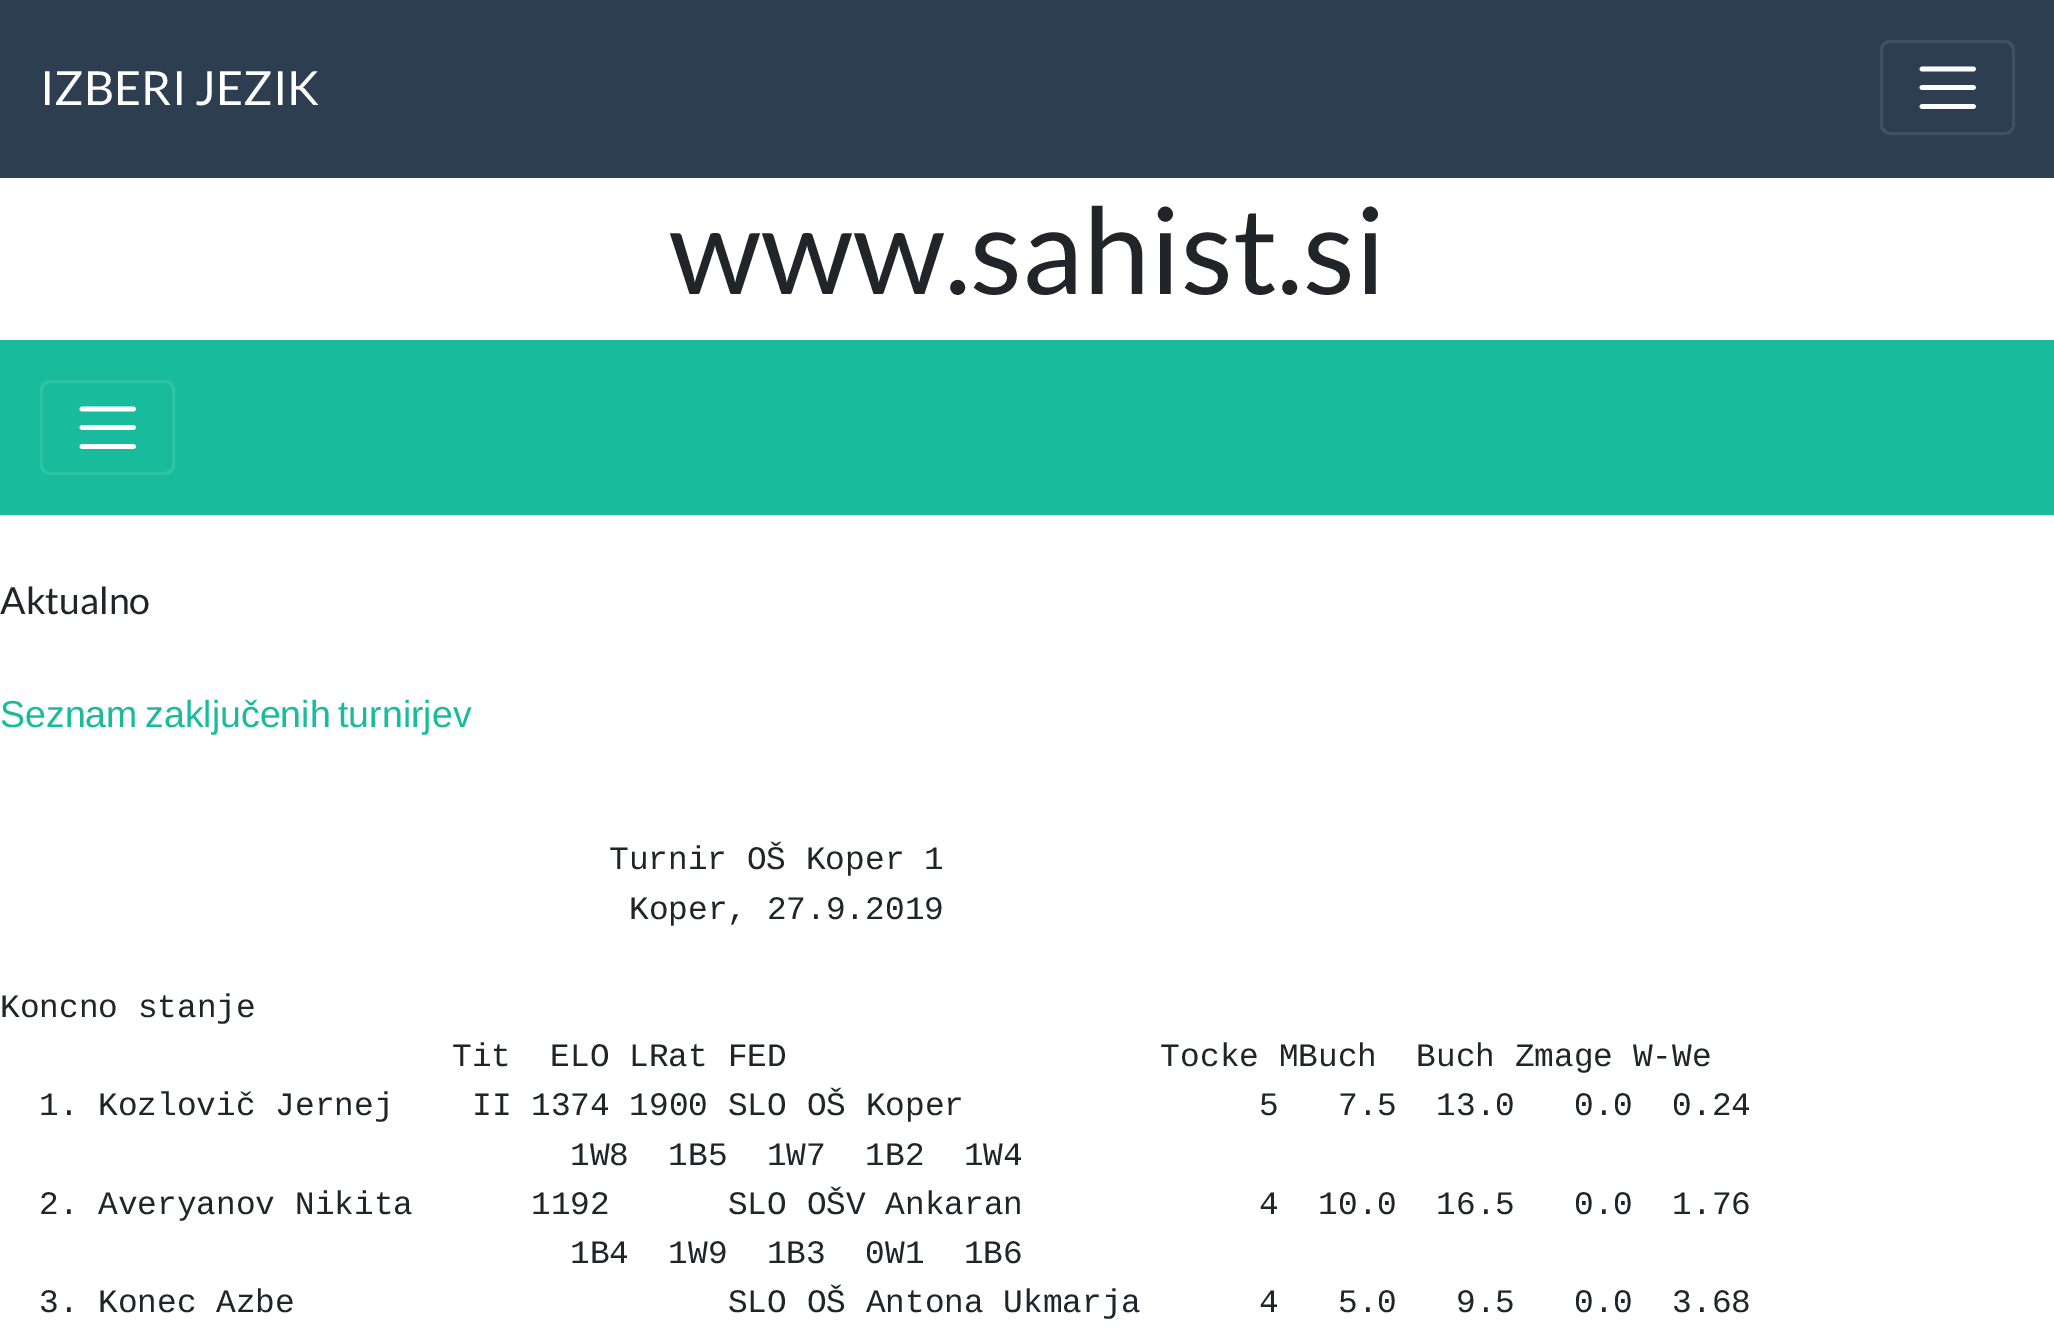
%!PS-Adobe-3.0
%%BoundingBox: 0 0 2054 1330
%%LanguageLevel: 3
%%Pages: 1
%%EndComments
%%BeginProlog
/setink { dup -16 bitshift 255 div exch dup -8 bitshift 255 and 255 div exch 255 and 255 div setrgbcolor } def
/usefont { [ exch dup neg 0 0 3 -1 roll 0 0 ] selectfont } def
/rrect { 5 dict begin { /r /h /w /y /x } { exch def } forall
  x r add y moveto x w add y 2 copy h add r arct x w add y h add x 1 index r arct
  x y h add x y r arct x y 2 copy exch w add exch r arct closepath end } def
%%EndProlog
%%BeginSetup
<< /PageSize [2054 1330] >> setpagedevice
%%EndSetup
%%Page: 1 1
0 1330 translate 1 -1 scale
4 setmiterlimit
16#FFFFFF setink
0 0 2054 1330 rectfill
16#2C3E50 setink
0 0 2054 178 rectfill
/Lato-Regular 47 usefont
16#FFFFFF setink
40 105 moveto (IZBERI JEZIK) show
16#415162 setink
3 setlinewidth
1881.5 41.5 132 92 8.5 rrect stroke
16#FFFFFF setink
4.7 setlinewidth
1 setlinecap
1922 69 moveto 1973.5 69 lineto 1922 87.5 moveto 1973.5 87.5 lineto 1922 106.5 moveto 1973.5 106.5 lineto stroke
/Lato-Regular 120 usefont
16#212529 setink
669 294 moveto (www.sahist.si) show
16#18BC9C setink
0 340 2054 175 rectfill
16#2FC3A6 setink
3 setlinewidth
0 setlinecap
41.5 381.5 132 92 8.5 rrect stroke
16#FFFFFF setink
4.7 setlinewidth
1 setlinecap
82 409 moveto 133.5 409 lineto 82 427.5 moveto 133.5 427.5 lineto 82 446.5 moveto 133.5 446.5 lineto stroke
/Lato-Regular 37.5 usefont
16#212529 setink
0 614 moveto (Aktualno) show
/LiberationSans-Regular 37.5 usefont
16#18BC9C setink
0 727 moveto -3 0 32 (Seznam zaključenih turnirjev) widthshow
/LiberationMono-Regular 32.8 usefont
16#212529 setink
[
    [(Turnir OŠ Koper 1) 609 869]
    [(Koper, 27.9.2019) 629 919]
    [(Koncno stanje) 0 1017]
    [(Tit  ELO LRat FED                   Tocke MBuch  Buch Zmage W-We) 452 1066]
    [(1. Kozlovič Jernej    II 1374 1900 SLO OŠ Koper               5   7.5  13.0   0.0  0.24) 39 1115]
    [(1W8  1B5  1W7  1B2  1W4) 570 1165]
    [(2. Averyanov Nikita      1192      SLO OŠV Ankaran            4  10.0  16.5   0.0  1.76) 39 1214]
    [(1B4  1W9  1B3  0W1  1B6) 570 1263]
    [(3. Konec Azbe                      SLO OŠ Antona Ukmarja      4   5.0   9.5   0.0  3.68) 39 1312]
] { aload pop moveto show } forall
showpage
%%EOF
